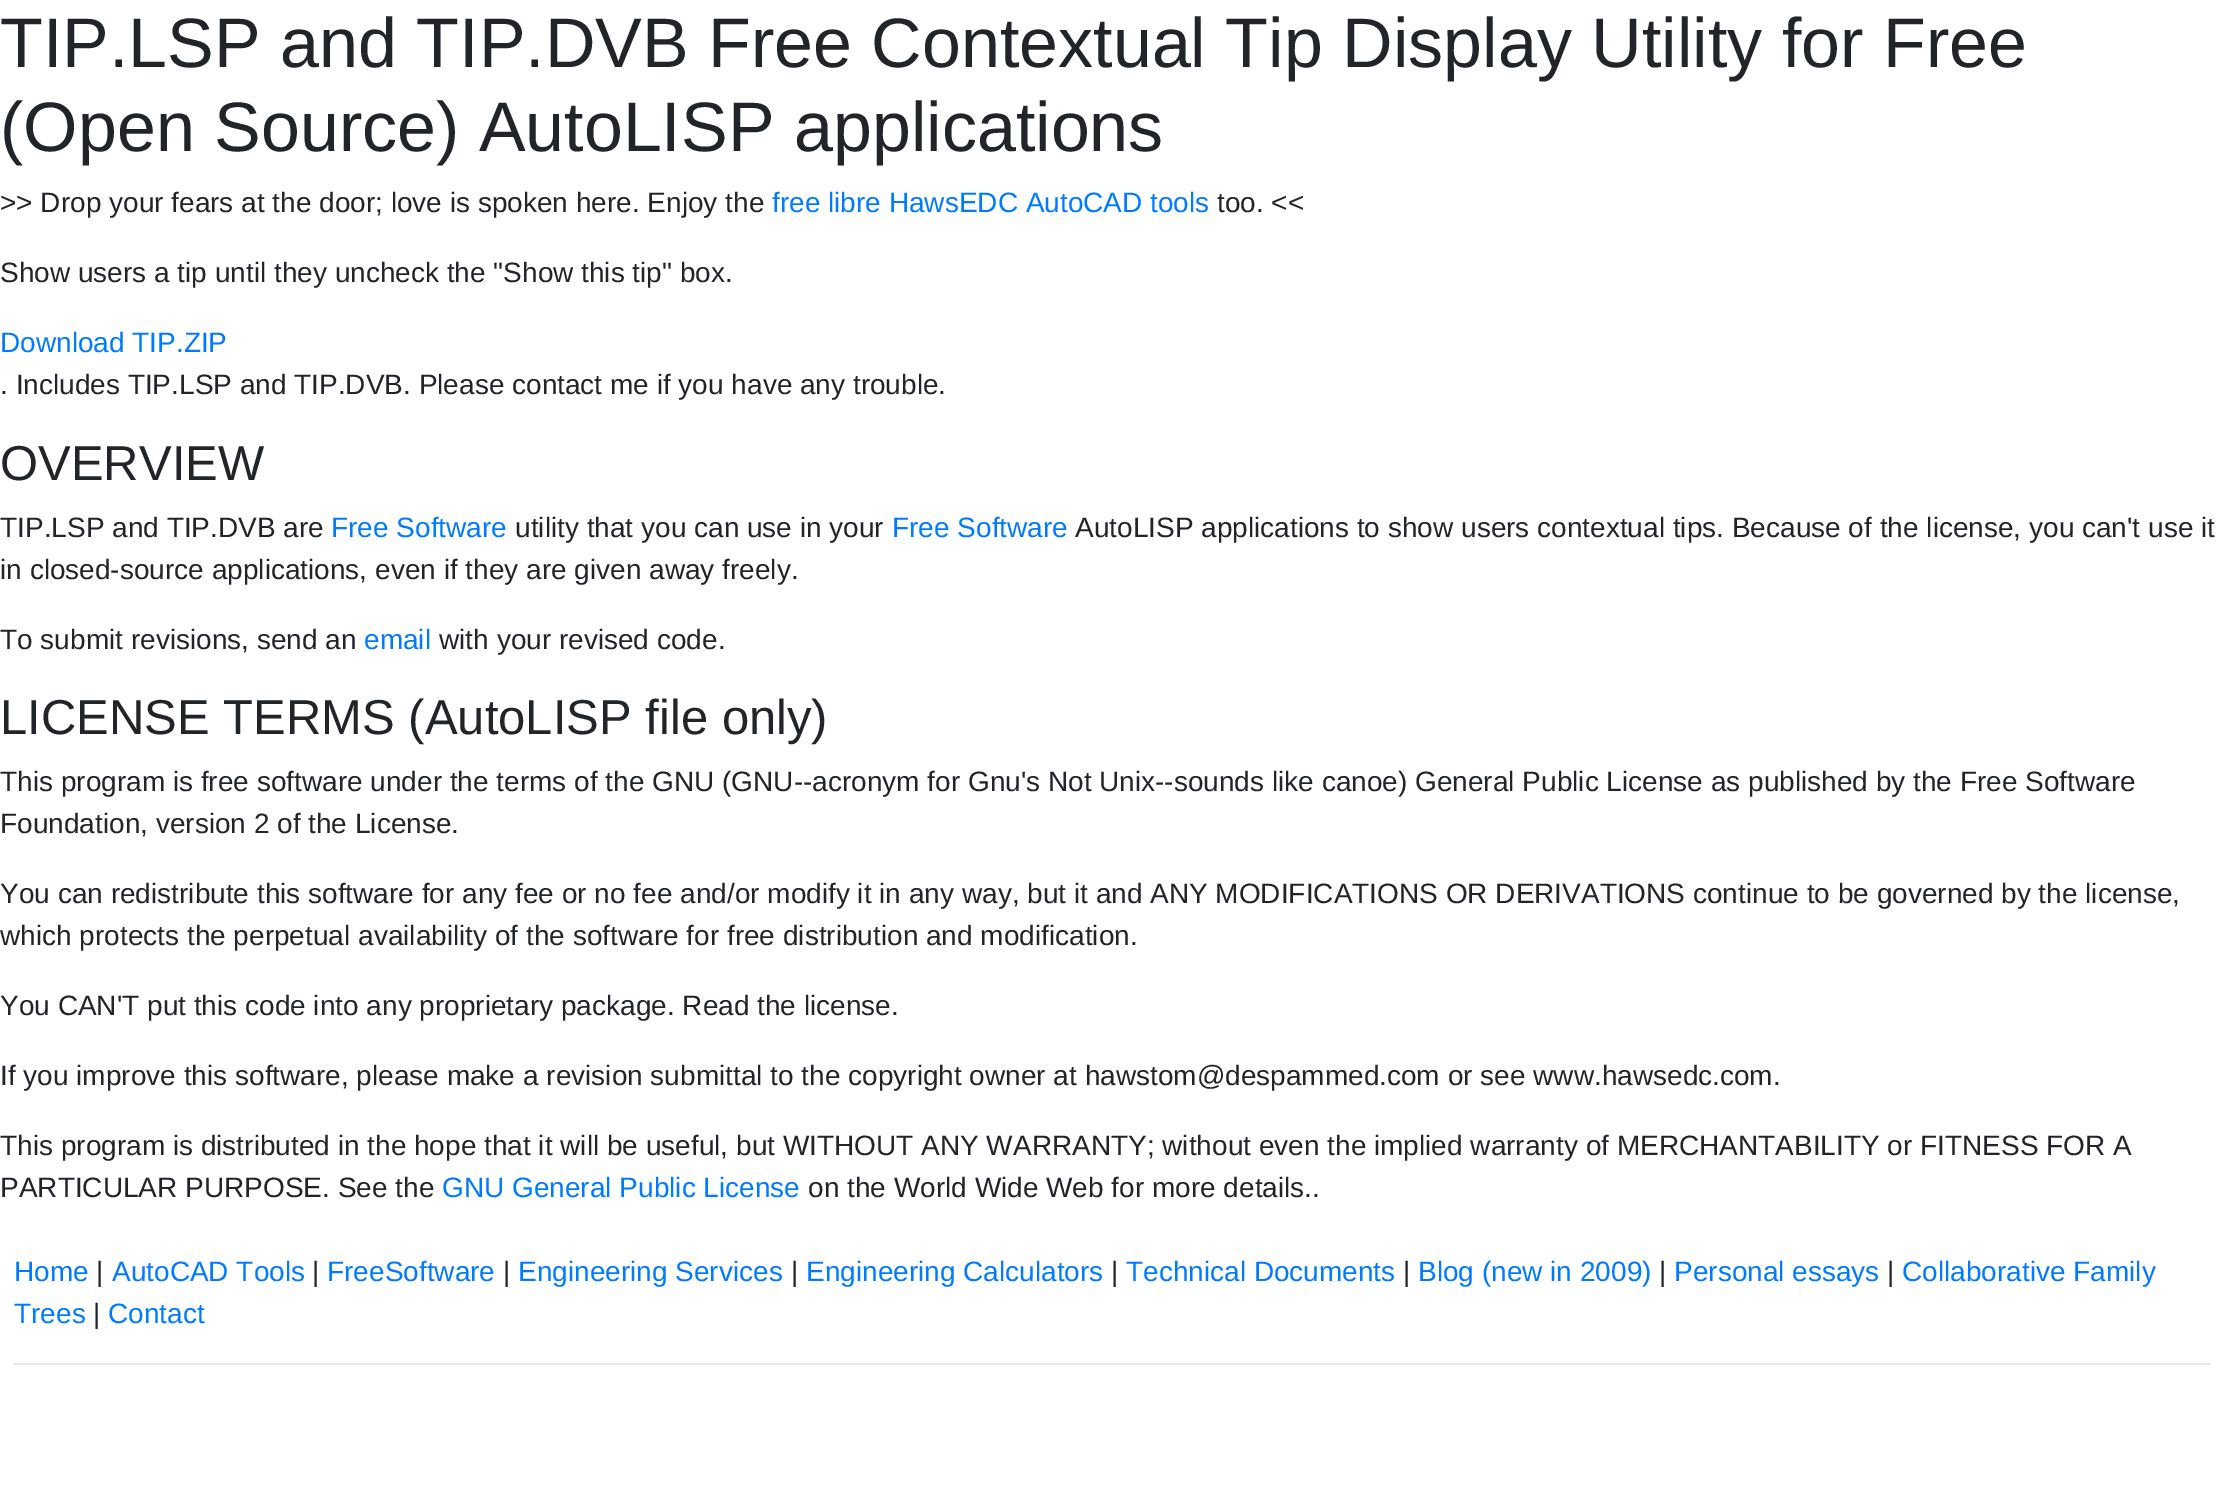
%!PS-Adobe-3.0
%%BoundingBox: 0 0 2224 1485
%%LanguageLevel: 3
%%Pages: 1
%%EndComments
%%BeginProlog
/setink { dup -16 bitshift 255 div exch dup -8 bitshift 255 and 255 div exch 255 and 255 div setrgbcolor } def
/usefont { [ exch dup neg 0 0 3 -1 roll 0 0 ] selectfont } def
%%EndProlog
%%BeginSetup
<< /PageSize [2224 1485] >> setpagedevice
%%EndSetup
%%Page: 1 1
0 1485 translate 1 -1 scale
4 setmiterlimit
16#FFFFFF setink
0 0 2224 1485 rectfill
/LiberationSans-Regular 70 usefont
16#212529 setink
0 67 moveto (TIP.LSP and TIP.DVB Free Contextual Tip Display Utility for Free) show
0 151 moveto (\(Open Source\) AutoLISP applications) show
/LiberationSans-Regular 28 usefont
0 212 moveto (>> Drop your fears at the door; love is spoken here. Enjoy the) show
16#007BFF setink
772 212 moveto (free libre HawsEDC AutoCAD tools) show
16#212529 setink
1217 212 moveto (too. <<) show
0 282 moveto (Show users a tip until they uncheck the "Show this tip" box.) show
16#007BFF setink
0 352 moveto (Download TIP.ZIP) show
16#212529 setink
0 394 moveto (. Includes TIP.LSP and TIP.DVB. Please contact me if you have any trouble.) show
/LiberationSans-Regular 49 usefont
0 480 moveto (OVERVIEW) show
/LiberationSans-Regular 28 usefont
0 537 moveto (TIP.LSP and TIP.DVB are) show
16#007BFF setink
331 537 moveto (Free Software) show
16#212529 setink
515 537 moveto (utility that you can use in your) show
16#007BFF setink
892 537 moveto (Free Software) show
16#212529 setink
[
    [(AutoLISP applications to show users contextual tips. Because of the license, you can't use it) 1075 537]
    [(in closed-source applications, even if they are given away freely.) 0 579]
    [(To submit revisions, send an) 0 649]
] { aload pop moveto show } forall
16#007BFF setink
364 649 moveto (email) show
16#212529 setink
439 649 moveto (with your revised code.) show
/LiberationSans-Regular 49 usefont
0 734 moveto (LICENSE TERMS \(AutoLISP file only\)) show
/LiberationSans-Regular 28 usefont
[
    [(This program is free software under the terms of the GNU \(GNU--acronym for Gnu's Not Unix--sounds like canoe\) General Public License as published by the Free Software) 0 791]
    [(Foundation, version 2 of the License.) 0 833]
    [(You can redistribute this software for any fee or no fee and/or modify it in any way, but it and ANY MODIFICATIONS OR DERIVATIONS continue to be governed by the license,) 0 903]
    [(which protects the perpetual availability of the software for free distribution and modification.) 0 945]
    [(You CAN'T put this code into any proprietary package. Read the license.) 0 1015]
    [(If you improve this software, please make a revision submittal to the copyright owner at hawstom@despammed.com or see www.hawsedc.com.) 0 1085]
    [(This program is distributed in the hope that it will be useful, but WITHOUT ANY WARRANTY; without even the implied warranty of MERCHANTABILITY or FITNESS FOR A) 0 1155]
    [(PARTICULAR PURPOSE. See the) 0 1197]
] { aload pop moveto show } forall
16#007BFF setink
442 1197 moveto (GNU General Public License) show
16#212529 setink
808 1197 moveto (on the World Wide Web for more details..) show
16#007BFF setink
14 1281 moveto (Home) show
16#212529 setink
96 1281 moveto (|) show
16#007BFF setink
112 1281 moveto (AutoCAD Tools) show
16#212529 setink
312 1281 moveto (|) show
16#007BFF setink
327 1281 moveto (FreeSoftware) show
16#212529 setink
503 1281 moveto (|) show
16#007BFF setink
518 1281 moveto (Engineering Services) show
16#212529 setink
791 1281 moveto (|) show
16#007BFF setink
806 1281 moveto (Engineering Calculators) show
16#212529 setink
1111 1281 moveto (|) show
16#007BFF setink
1126 1281 moveto (Technical Documents) show
16#212529 setink
1403 1281 moveto (|) show
16#007BFF setink
1418 1281 moveto (Blog \(new in 2009\)) show
16#212529 setink
1659 1281 moveto (|) show
16#007BFF setink
1674 1281 moveto (Personal essays) show
16#212529 setink
1887 1281 moveto (|) show
16#007BFF setink
1902 1281 moveto (Collaborative Family) show
14 1323 moveto (Trees) show
16#212529 setink
93 1323 moveto (|) show
16#007BFF setink
108 1323 moveto (Contact) show
16#E6E6E6 setink
14 1363 2196 2 rectfill
showpage
%%EOF
